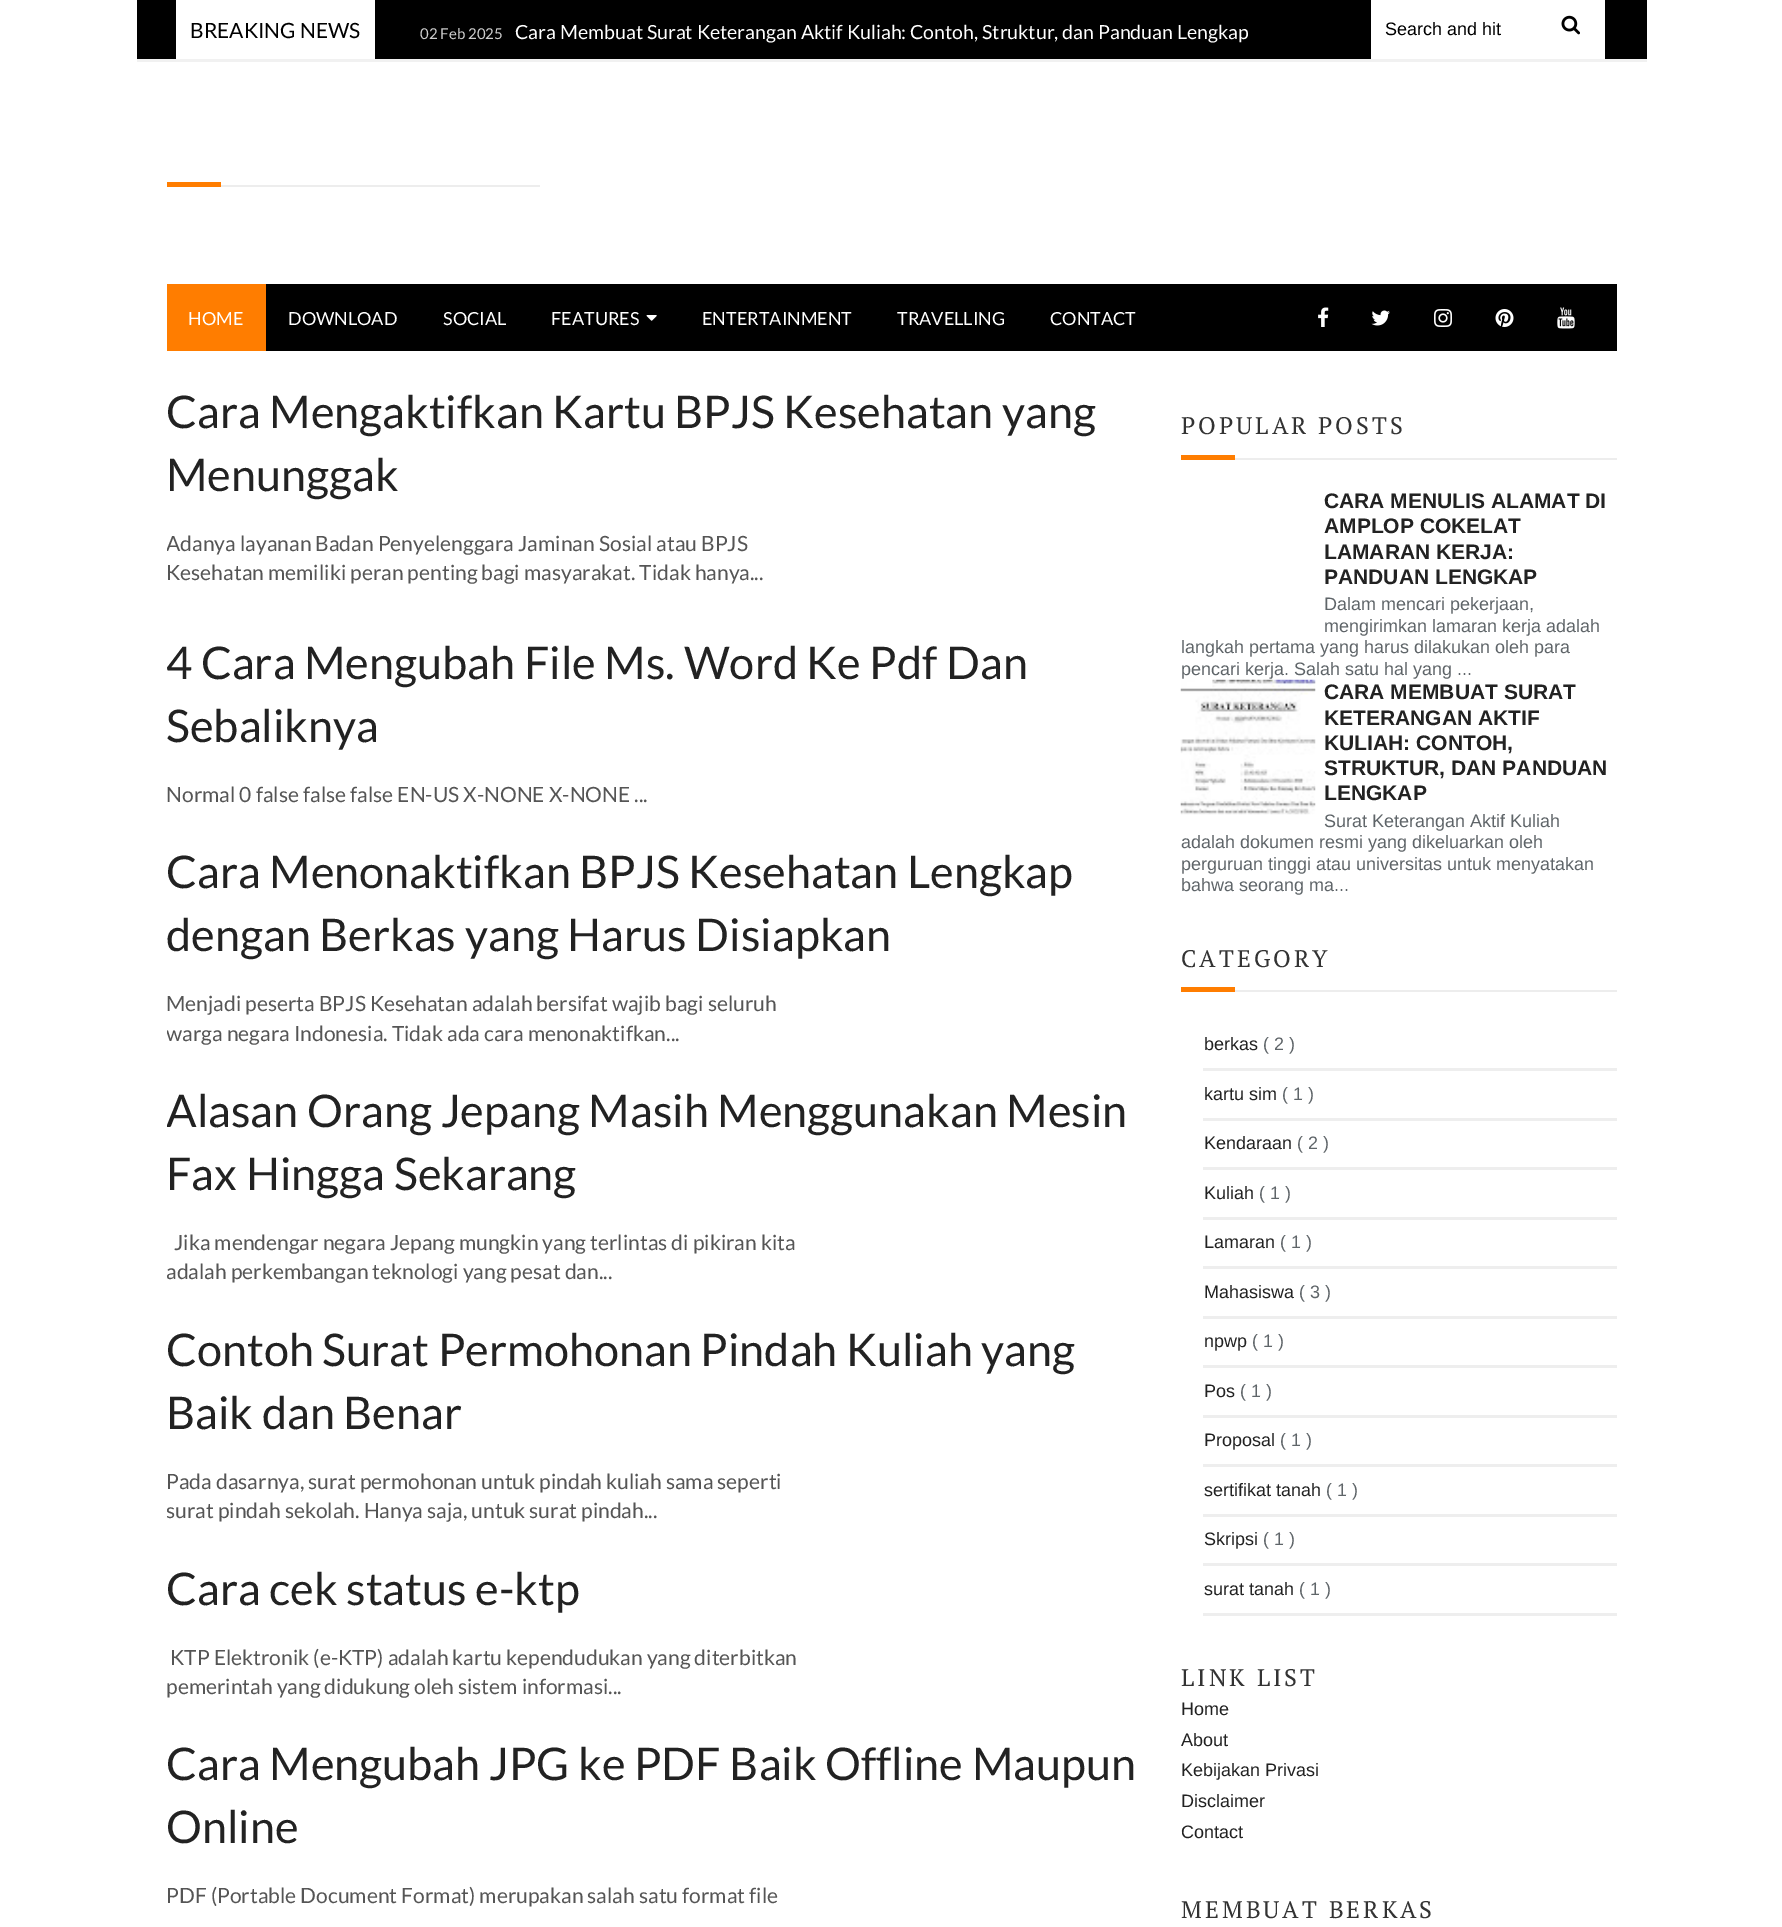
%!PS-Adobe-3.0
%%BoundingBox: 0 0 1782 1927
%%LanguageLevel: 3
%%Pages: 1
%%EndComments
%%BeginProlog
/setink { dup -16 bitshift 255 div exch dup -8 bitshift 255 and 255 div exch 255 and 255 div setrgbcolor } def
/usefont { [ exch dup neg 0 0 3 -1 roll 0 0 ] selectfont } def
/drawimage { 5 dict begin { /h /w /y /x /name } { exch def } forall
  gsave x y translate w h scale
  w h 8 [w 0 0 h 0 0] name (r) file false 3 colorimage grestore end } def
%%EndProlog
%%BeginSetup
<< /PageSize [1782 1927] >> setpagedevice
%%EndSetup
%%Page: 1 1
0 1927 translate 1 -1 scale
4 setmiterlimit
16#FFFFFF setink
0 0 1782 1927 rectfill
[
    [137 0 1510 59 16#000000]
    [137 59 1510 3 16#F1F1F1]
    [176 0 199 59 16#FFFFFF]
] { aload pop setink rectfill } forall
/Lato-Regular 21 usefont
16#000000 setink
190 38 moveto (BREAKING NEWS) show
/Lato-Regular 15 usefont
16#CCCCCC setink
420 39 moveto (02 Feb 2025) show
/Lato-Regular 19.5 usefont
16#FFFFFF setink
515 39 moveto (Cara Membuat Surat Keterangan Aktif Kuliah: Contoh, Struktur, dan Panduan Lengkap) show
1371 0 234 59 rectfill
/LiberationSans-Regular 18 usefont
16#000000 setink
1385 35 moveto (Search and hit) show
(img1.raw) 1561 15 19 20 drawimage
[
    [221 185 319 2 16#EDEDED]
    [167 182 54 5 16#FF7D00]
    [266 284 1351 67 16#000000]
    [167 284 99 67 16#FF7D00]
] { aload pop setink rectfill } forall
/Lato-Regular 18 usefont
16#FFFFFF setink
[
    [(HOME) 188 325]
    [(DOWNLOAD) 288 325]
    [(SOCIAL) 443 325]
    [(FEATURES) 551 325]
] { aload pop moveto show } forall
(img2.raw) 646 315 11 6 drawimage
[
    [(ENTERTAINMENT) 702 325]
    [(TRAVELLING) 897 325]
    [(CONTACT) 1050 325]
] { aload pop moveto show } forall
(img3.raw) 1318 307 11 20 drawimage
(img4.raw) 1371 310 19 16 drawimage
(img5.raw) 1434 309 18 18 drawimage
(img6.raw) 1495 309 19 18 drawimage
(img7.raw) 1557 307 18 22 drawimage
/Lato-Regular 45 usefont
16#222222 setink
166 428 moveto (Cara Mengaktifkan Kartu BPJS Kesehatan yang) show
166 491 moveto (Menunggak) show
gsave
167 356 1000 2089 rectclip
/Lato-Regular 21 usefont
16#555555 setink
166 551 moveto (Adanya layanan Badan Penyelenggara Jaminan Sosial atau BPJS) show
grestore
/Lato-Regular 21 usefont
16#555555 setink
166 580 moveto (Kesehatan memiliki peran penting bagi masyarakat. Tidak hanya...) show
/Lato-Regular 45 usefont
16#222222 setink
166 679 moveto (4 Cara Mengubah File Ms. Word Ke Pdf Dan) show
166 742 moveto (Sebaliknya) show
/Lato-Regular 21 usefont
16#555555 setink
166 802 moveto (Normal 0 false false false EN-US X-NONE X-NONE ...) show
/Lato-Regular 45 usefont
16#222222 setink
166 888 moveto (Cara Menonaktifkan BPJS Kesehatan Lengkap) show
166 951 moveto (dengan Berkas yang Harus Disiapkan) show
/Lato-Regular 21 usefont
16#555555 setink
166 1011 moveto (Menjadi peserta BPJS Kesehatan adalah bersifat wajib bagi seluruh) show
gsave
167 356 1000 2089 rectclip
166 1041 moveto (warga negara Indonesia. Tidak ada cara menonaktifkan...) show
/Lato-Regular 45 usefont
16#222222 setink
166 1127 moveto (Alasan Orang Jepang Masih Menggunakan Mesin) show
grestore
/Lato-Regular 45 usefont
16#222222 setink
166 1190 moveto (Fax Hingga Sekarang) show
/Lato-Regular 21 usefont
16#555555 setink
174 1250 moveto (Jika mendengar negara Jepang mungkin yang terlintas di pikiran kita) show
gsave
167 356 1000 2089 rectclip
166 1279 moveto (adalah perkembangan teknologi yang pesat dan...) show
grestore
/Lato-Regular 45 usefont
16#222222 setink
166 1366 moveto (Contoh Surat Permohonan Pindah Kuliah yang) show
166 1429 moveto (Baik dan Benar) show
/Lato-Regular 21 usefont
16#555555 setink
166 1489 moveto (Pada dasarnya, surat permohonan untuk pindah kuliah sama seperti) show
gsave
167 356 1000 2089 rectclip
166 1518 moveto (surat pindah sekolah. Hanya saja, untuk surat pindah...) show
grestore
/Lato-Regular 45 usefont
16#222222 setink
166 1605 moveto (Cara cek status e-ktp) show
/Lato-Regular 21 usefont
16#555555 setink
170 1665 moveto (KTP Elektronik \(e-KTP\) adalah kartu kependudukan yang diterbitkan) show
166 1694 moveto (pemerintah yang didukung oleh sistem informasi...) show
/Lato-Regular 45 usefont
16#222222 setink
166 1780 moveto (Cara Mengubah JPG ke PDF Baik Offline Maupun) show
166 1843 moveto (Online) show
/Lato-Regular 21 usefont
16#555555 setink
166 1903 moveto (PDF \(Portable Document Format\) merupakan salah satu format file) show
16#EDEDED setink
1235 458 382 2 rectfill
/PTSerif-Regular 24 usefont
16#333333 setink
1181 434 moveto 3 0 (POPULAR POSTS) ashow
16#FF7D00 setink
1181 455 54 5 rectfill
/LiberationSans-Bold 21 usefont
16#222222 setink
[
    [(CARA MENULIS ALAMAT DI) 1324 508]
    [(AMPLOP COKELAT) 1324 533]
    [(LAMARAN KERJA:) 1324 559]
    [(PANDUAN LENGKAP) 1324 584]
] { aload pop moveto show } forall
/LiberationSans-Regular 18 usefont
16#5F6569 setink
[
    [(Dalam mencari pekerjaan,) 1324 610]
    [(mengirimkan lamaran kerja adalah) 1324 632]
    [(langkah pertama yang harus dilakukan oleh para) 1181 653]
    [(pencari kerja. Salah satu hal yang ...) 1181 675]
] { aload pop moveto show } forall
(img8.raw) 1180 679 136 136 drawimage
/LiberationSans-Bold 21 usefont
16#222222 setink
[
    [(CARA MEMBUAT SURAT) 1324 699]
    [(KETERANGAN AKTIF) 1324 725]
    [(KULIAH: CONTOH,) 1324 750]
    [(STRUKTUR, DAN PANDUAN) 1324 775]
    [(LENGKAP) 1324 800]
] { aload pop moveto show } forall
/LiberationSans-Regular 18 usefont
16#5F6569 setink
[
    [(Surat Keterangan Aktif Kuliah) 1324 827]
    [(adalah dokumen resmi yang dikeluarkan oleh) 1181 848]
    [(perguruan tinggi atau universitas untuk menyatakan) 1181 870]
    [(bahwa seorang ma...) 1181 891]
] { aload pop moveto show } forall
16#EDEDED setink
1235 990 382 2 rectfill
/PTSerif-Regular 24 usefont
16#333333 setink
1181 967 moveto 3 0 (CATEGORY) ashow
16#FF7D00 setink
1181 987 54 5 rectfill
16#EEEEEE setink
1203 1068 414 3 rectfill
/LiberationSans-Regular 18 usefont
16#222222 setink
1204 1050 moveto (berkas) show
16#5F6569 setink
1263 1050 moveto (\( 2 \)) show
16#EEEEEE setink
1203 1118 414 3 rectfill
16#222222 setink
1204 1100 moveto (kartu sim) show
16#5F6569 setink
1282 1100 moveto (\( 1 \)) show
16#EEEEEE setink
1203 1167 414 3 rectfill
16#222222 setink
1204 1149 moveto (Kendaraan) show
16#5F6569 setink
1297 1149 moveto (\( 2 \)) show
16#EEEEEE setink
1203 1217 414 3 rectfill
16#222222 setink
1204 1199 moveto (Kuliah) show
16#5F6569 setink
1259 1199 moveto (\( 1 \)) show
16#EEEEEE setink
1203 1266 414 3 rectfill
16#222222 setink
1204 1248 moveto (Lamaran) show
16#5F6569 setink
1280 1248 moveto (\( 1 \)) show
16#EEEEEE setink
1203 1316 414 3 rectfill
16#222222 setink
1204 1298 moveto (Mahasiswa) show
16#5F6569 setink
1299 1298 moveto (\( 3 \)) show
16#EEEEEE setink
1203 1365 414 3 rectfill
16#222222 setink
1204 1347 moveto (npwp) show
16#5F6569 setink
1252 1347 moveto (\( 1 \)) show
16#EEEEEE setink
1203 1415 414 3 rectfill
16#222222 setink
1204 1397 moveto (Pos) show
16#5F6569 setink
1240 1397 moveto (\( 1 \)) show
16#EEEEEE setink
1203 1464 414 3 rectfill
16#222222 setink
1204 1446 moveto (Proposal) show
16#5F6569 setink
1280 1446 moveto (\( 1 \)) show
16#EEEEEE setink
1203 1514 414 3 rectfill
16#222222 setink
1204 1496 moveto (sertifikat tanah) show
16#5F6569 setink
1326 1496 moveto (\( 1 \)) show
16#EEEEEE setink
1203 1563 414 3 rectfill
16#222222 setink
1204 1545 moveto (Skripsi) show
16#5F6569 setink
1263 1545 moveto (\( 1 \)) show
16#EEEEEE setink
1203 1613 414 3 rectfill
16#222222 setink
1204 1595 moveto (surat tanah) show
16#5F6569 setink
1299 1595 moveto (\( 1 \)) show
/PTSerif-Regular 24 usefont
16#333333 setink
1181 1686 moveto 3 0 (LINK LIST) ashow
/LiberationSans-Regular 18 usefont
16#222222 setink
[
    [(Home) 1181 1715]
    [(About) 1181 1746]
    [(Kebijakan Privasi) 1181 1776]
    [(Disclaimer) 1181 1807]
    [(Contact) 1181 1838]
] { aload pop moveto show } forall
/PTSerif-Regular 24 usefont
16#333333 setink
1181 1918 moveto 3 0 (MEMBUAT BERKAS) ashow
showpage
%%EOF
